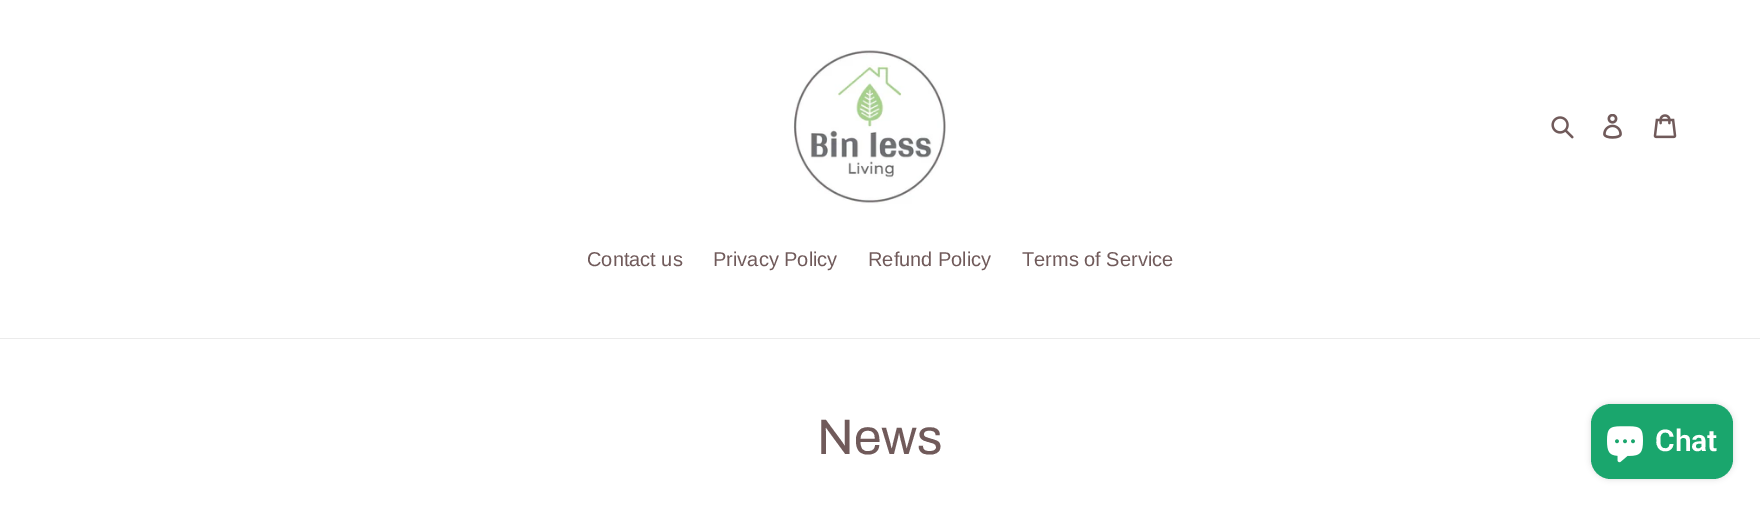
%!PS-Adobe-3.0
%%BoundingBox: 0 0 1760 505
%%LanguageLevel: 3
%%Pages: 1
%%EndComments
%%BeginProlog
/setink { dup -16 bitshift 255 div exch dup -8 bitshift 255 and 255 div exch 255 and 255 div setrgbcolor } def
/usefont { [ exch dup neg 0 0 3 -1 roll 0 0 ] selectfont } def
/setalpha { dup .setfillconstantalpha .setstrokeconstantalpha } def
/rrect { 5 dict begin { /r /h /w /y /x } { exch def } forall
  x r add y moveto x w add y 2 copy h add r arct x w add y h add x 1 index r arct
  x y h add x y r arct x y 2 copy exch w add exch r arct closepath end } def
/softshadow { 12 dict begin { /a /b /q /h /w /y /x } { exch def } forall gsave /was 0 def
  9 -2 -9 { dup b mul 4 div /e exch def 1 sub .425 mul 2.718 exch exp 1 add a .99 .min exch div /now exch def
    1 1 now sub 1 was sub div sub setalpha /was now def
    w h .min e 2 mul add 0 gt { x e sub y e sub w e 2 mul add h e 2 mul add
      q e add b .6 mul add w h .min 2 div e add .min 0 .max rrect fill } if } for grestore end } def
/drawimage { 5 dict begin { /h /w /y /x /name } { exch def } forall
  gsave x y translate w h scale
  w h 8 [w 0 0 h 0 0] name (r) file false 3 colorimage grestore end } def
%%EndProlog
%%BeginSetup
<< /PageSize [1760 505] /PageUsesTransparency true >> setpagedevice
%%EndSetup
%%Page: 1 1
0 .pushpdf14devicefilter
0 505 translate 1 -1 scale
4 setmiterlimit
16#FFFFFF setink
0 0 1760 505 rectfill
(img1.raw) 793 50 153 154 drawimage
(img2.raw) 1551 116 23 23 drawimage
(img3.raw) 1603 114 19 25 drawimage
(img4.raw) 1653 114 24 25 drawimage
16#EBEBEB setink
0 338 1760 1 rectfill
/LiberationSans-Regular 20 usefont
16#705A5A setink
[
    [(Contact us) 587 266]
    [(Privacy Policy) 713 266]
    [(Refund Policy) 868 266]
    [(Terms of Service) 1022 266]
] { aload pop moveto show } forall
/Archivo-Regular 50 usefont
817 454 moveto (News) show
16#000000 setink
1591 404 142 75 20 3 0.15 softshadow
16#1AA66D setink
1591 404 142 75 20 rrect fill
(img5.raw) 1607 426 36 37 drawimage
/Roboto-SemiBold 30 usefont
16#FFFFFF setink
1655 451 moveto (Chat) show
.poppdf14devicefilter showpage
%%EOF
